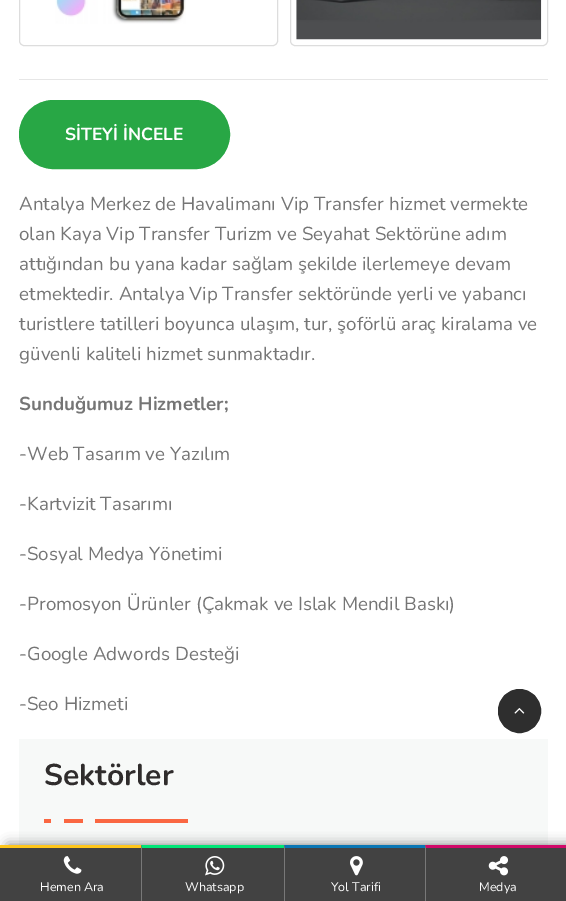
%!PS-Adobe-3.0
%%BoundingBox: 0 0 566 901
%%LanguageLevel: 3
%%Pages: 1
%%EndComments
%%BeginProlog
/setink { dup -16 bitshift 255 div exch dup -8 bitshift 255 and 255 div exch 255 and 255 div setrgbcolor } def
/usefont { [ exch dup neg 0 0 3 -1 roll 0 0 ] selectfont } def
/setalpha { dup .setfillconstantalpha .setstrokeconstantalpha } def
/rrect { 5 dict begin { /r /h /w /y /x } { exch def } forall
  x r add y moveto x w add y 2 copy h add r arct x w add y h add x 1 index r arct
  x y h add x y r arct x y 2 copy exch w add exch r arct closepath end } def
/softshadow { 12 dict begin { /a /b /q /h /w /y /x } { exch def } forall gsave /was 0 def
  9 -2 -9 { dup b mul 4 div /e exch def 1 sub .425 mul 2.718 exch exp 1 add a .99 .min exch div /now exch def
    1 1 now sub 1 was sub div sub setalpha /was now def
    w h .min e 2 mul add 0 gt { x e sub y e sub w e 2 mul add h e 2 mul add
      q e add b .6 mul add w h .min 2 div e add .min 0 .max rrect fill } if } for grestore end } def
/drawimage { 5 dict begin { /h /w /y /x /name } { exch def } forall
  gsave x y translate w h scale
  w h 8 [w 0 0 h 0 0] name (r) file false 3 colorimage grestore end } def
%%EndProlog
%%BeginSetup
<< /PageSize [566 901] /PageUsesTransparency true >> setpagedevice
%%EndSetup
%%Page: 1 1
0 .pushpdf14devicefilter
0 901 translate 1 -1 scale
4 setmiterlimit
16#FFFFFF setink
0 0 566 901 rectfill
16#DDDDDD setink
19.5 -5.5 258 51 4.5 rrect stroke
(img1.raw) 55 0 131 24 drawimage
290.5 -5.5 257 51 4.5 rrect stroke
(img2.raw) 296 0 246 40 drawimage
16#E6E6E6 setink
19 79 529 1 rectfill
16#28A745 setink
19.5 100.5 210 68 34 rrect gsave fill grestore
stroke
/Nunito-Bold 17.5 usefont
16#FFFFFF setink
65 140 moveto (SİTEYİ İNCELE) show
/Nunito-Regular 18.75 usefont
16#757575 setink
[
    [(Antalya Merkez de Havalimanı Vip Transfer hizmet vermekte) 19 210]
    [(olan Kaya Vip Transfer Turizm ve Seyahat Sektörüne adım) 19 240]
    [(attığından bu yana kadar sağlam şekilde ilerlemeye devam) 19 270]
    [(etmektedir. Antalya Vip Transfer sektöründe yerli ve yabancı) 19 300]
    [(turistlere tatilleri boyunca ulaşım, tur, şoförlü araç kiralama ve) 19 330]
    [(güvenli kaliteli hizmet sunmaktadır.) 19 360]
] { aload pop moveto show } forall
/Nunito-Bold 18.75 usefont
19 410 moveto (Sunduğumuz Hizmetler;) show
/Nunito-Regular 18.75 usefont
[
    [(-Web Tasarım ve Yazılım) 19 460]
    [(-Kartvizit Tasarımı) 19 510]
    [(-Sosyal Medya Yönetimi) 19 560]
    [(-Promosyon Ürünler \(Çakmak ve Islak Mendil Baskı\)) 19 610]
    [(-Google Adwords Desteği) 19 660]
    [(-Seo Hizmeti) 19 710]
] { aload pop moveto show } forall
16#F7F9F8 setink
19 739 529 106 rectfill
/Nunito-Bold 30 usefont
16#2F2C2C setink
44 785 moveto (Sektörler) show
[
    [44 819 144 4 16#FA6742]
    [83 819 12 4 16#F7F9F8]
    [51 819 13 4 16#F7F9F8]
] { aload pop setink rectfill } forall
16#2E2E2E setink
498.5 689.5 42 43 21 rrect gsave fill grestore
stroke
(img3.raw) 514 708 11 6 drawimage
16#000000 setink
8 845 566 56 0 6 0.5 softshadow
16#424242 setink
0 848 141 53 rectfill
16#FFC61A setink
0 845 144 3 rectfill
(img4.raw) 63 856 19 18 drawimage
/Nunito-Regular 12.5 usefont
16#FFFFFF setink
40 891 moveto (Hemen Ara) show
16#424242 setink
141 845 143 56 rectfill
16#00E676 setink
141 845 moveto 286 845 lineto 286 848 lineto 142 848 lineto closepath fill
16#787878 setink
141 901 moveto 141 845 lineto 142 848 lineto 142 901 lineto closepath fill
(img5.raw) 205 856 20 20 drawimage
16#FFFFFF setink
185 891 moveto (Whatsapp) show
16#424242 setink
284 845 141 56 rectfill
16#0976B4 setink
284 845 moveto 428 845 lineto 428 848 lineto 285 848 lineto closepath fill
16#787878 setink
284 901 moveto 284 845 lineto 285 848 lineto 285 901 lineto closepath fill
(img6.raw) 350 856 13 20 drawimage
16#FFFFFF setink
331 891 moveto (Yol Tarifi) show
16#424242 setink
425 845 141 56 rectfill
16#D10869 setink
425 845 moveto 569 845 lineto 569 848 lineto 426 848 lineto closepath fill
16#787878 setink
425 901 moveto 425 845 lineto 426 848 lineto 426 901 lineto closepath fill
(img7.raw) 488 856 20 20 drawimage
16#FFFFFF setink
479 891 moveto (Medya) show
.poppdf14devicefilter showpage
%%EOF
